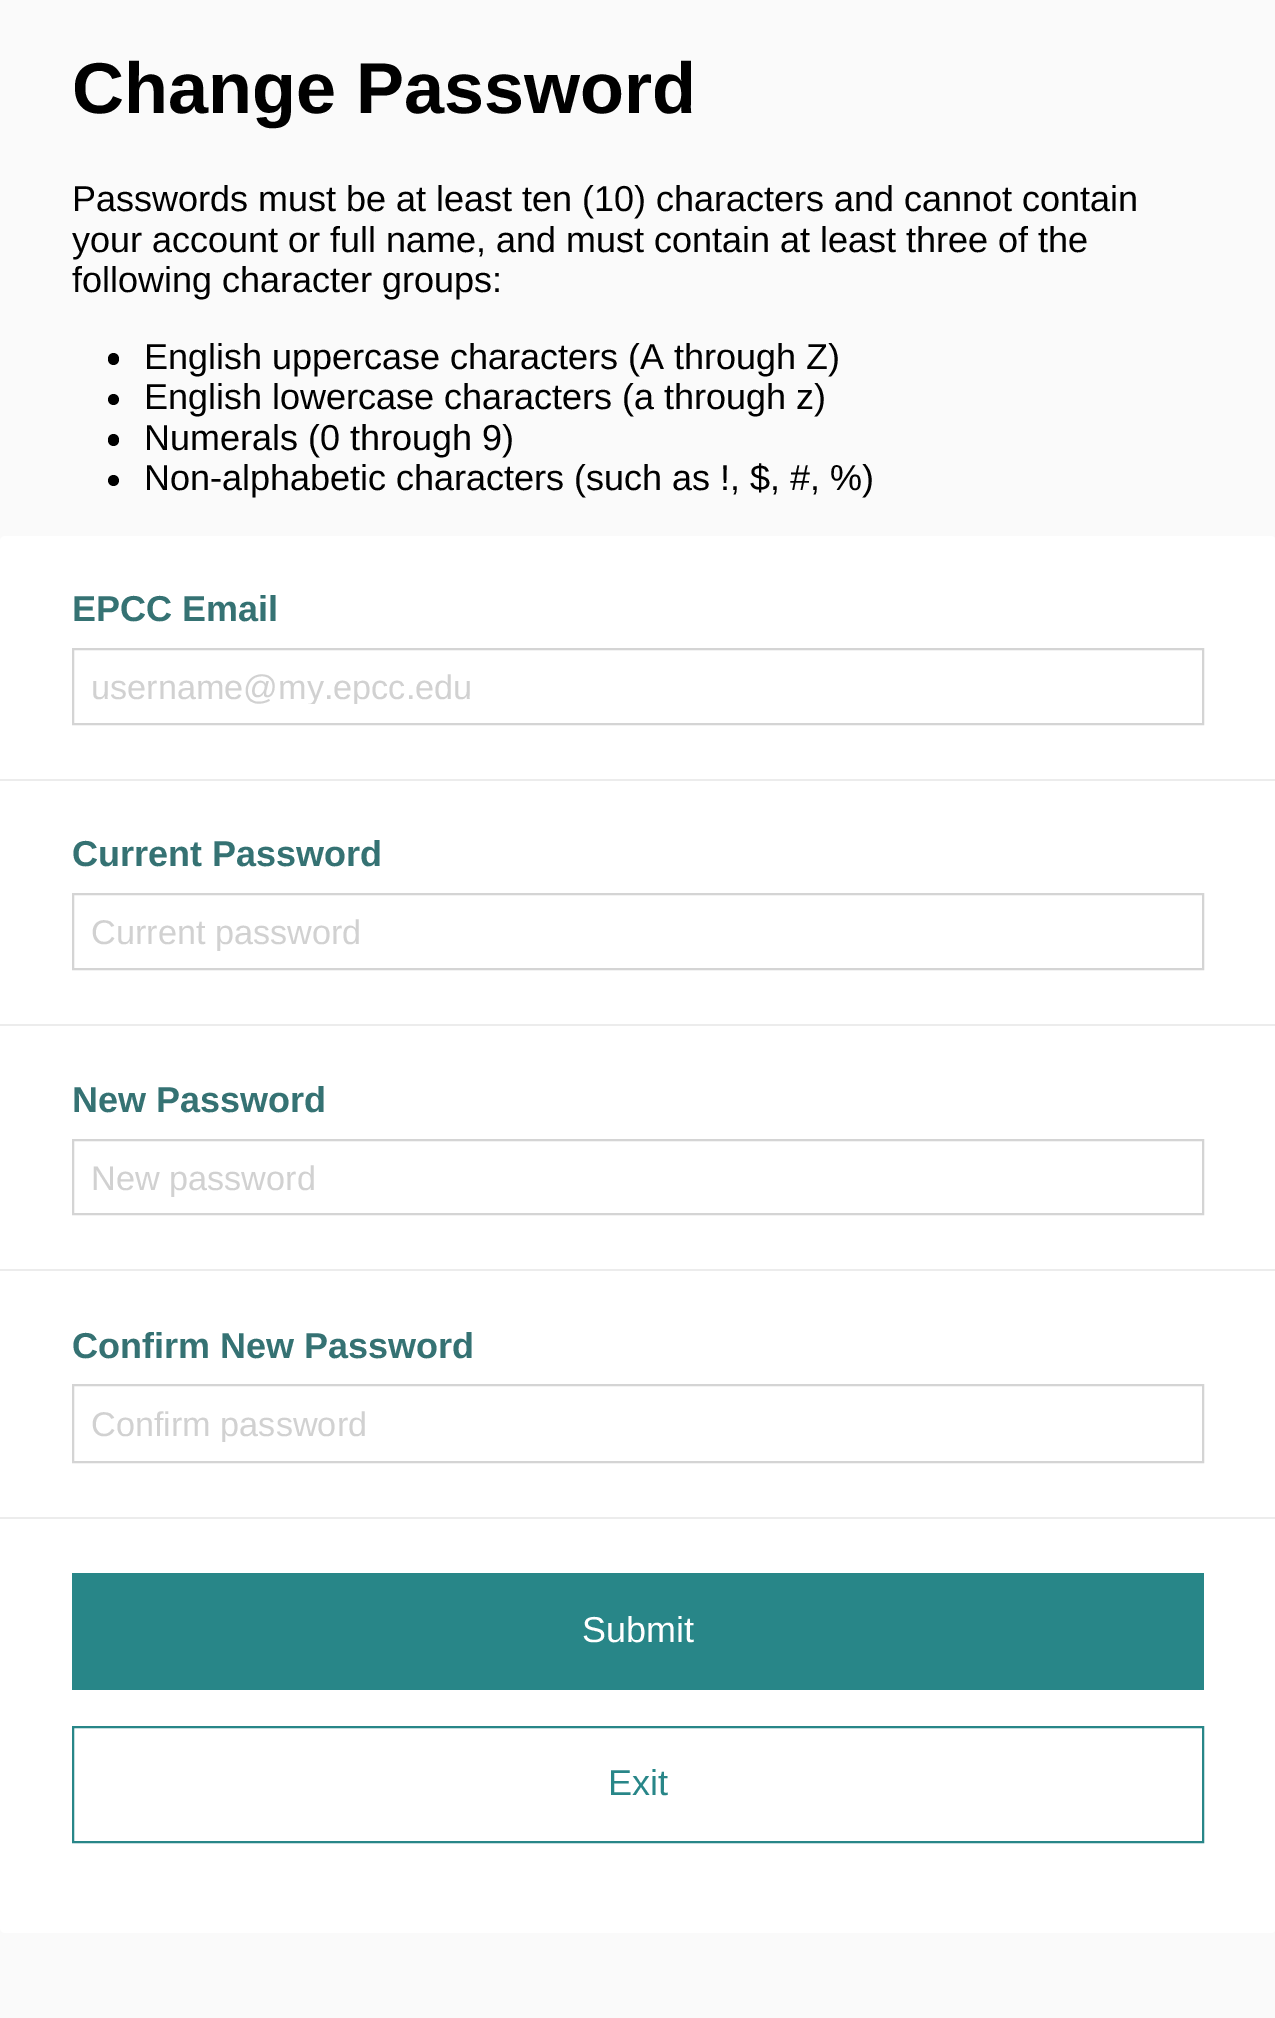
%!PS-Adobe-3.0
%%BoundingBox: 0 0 1275 2018
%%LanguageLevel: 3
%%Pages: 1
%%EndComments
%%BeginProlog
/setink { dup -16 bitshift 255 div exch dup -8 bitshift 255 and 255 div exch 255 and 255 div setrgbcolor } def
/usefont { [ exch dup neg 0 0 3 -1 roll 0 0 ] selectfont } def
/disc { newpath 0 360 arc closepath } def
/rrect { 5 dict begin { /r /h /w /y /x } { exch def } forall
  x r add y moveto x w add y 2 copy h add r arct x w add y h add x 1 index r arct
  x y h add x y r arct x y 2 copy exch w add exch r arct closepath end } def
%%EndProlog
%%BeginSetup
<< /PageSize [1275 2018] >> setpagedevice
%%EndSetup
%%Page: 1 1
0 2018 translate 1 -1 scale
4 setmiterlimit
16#FAFAFA setink
0 0 1275 2018 rectfill
/LiberationSans-Bold 72 usefont
16#000000 setink
72 113 moveto (Change Password) show
/LiberationSans-Regular 36 usefont
[
    [(Passwords must be at least ten \(10\) characters and cannot contain) 72 211]
    [(your account or full name, and must contain at least three of the) 72 252]
    [(following character groups:) 72 292]
] { aload pop moveto show } forall
108 353 11 12 5.5 rrect fill
144 369 moveto (English uppercase characters \(A through Z\)) show
113.5 399.5 5.5 disc fill
144 409 moveto (English lowercase characters \(a through z\)) show
108 434 11 12 5.5 rrect fill
144 450 moveto (Numerals \(0 through 9\)) show
113.5 480.5 5.5 disc fill
144 490 moveto (Non-alphabetic characters \(such as !, $, #, %\)) show
16#FFFFFF setink
0 536 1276 1397 5 rrect fill
/LiberationSans-Bold 36 usefont
16#357273 setink
72 621 moveto (EPCC Email) show
16#D4D4D4 setink
2 setlinewidth
73 649 1130 75 rectstroke
gsave
92 666 1092 38 rectclip
/LiberationSans-Regular 34.25 usefont
16#D1D1D1 setink
91 699 moveto (username@my.epcc.edu) show
grestore
16#ECECEC setink
0 779 1275 2 rectfill
16#357273 setink
72 866 moveto (Current Password) show
16#D4D4D4 setink
73 894 1130 75 rectstroke
/LiberationSans-Regular 34.25 usefont
16#D1D1D1 setink
91 944 moveto (Current password) show
16#ECECEC setink
0 1024 1275 2 rectfill
/LiberationSans-Bold 36 usefont
16#357273 setink
72 1112 moveto (New Password) show
16#D4D4D4 setink
73 1140 1130 74 rectstroke
/LiberationSans-Regular 34.25 usefont
16#D1D1D1 setink
91 1190 moveto (New password) show
16#ECECEC setink
0 1269 1275 2 rectfill
/LiberationSans-Bold 36 usefont
16#357273 setink
72 1358 moveto (Confirm New Password) show
16#D4D4D4 setink
73 1385 1130 77 rectstroke
gsave
92 1404 1092 38 rectclip
/LiberationSans-Regular 34.25 usefont
16#D1D1D1 setink
91 1436 moveto (Confirm password) show
grestore
16#ECECEC setink
0 1517 1275 2 rectfill
16#288688 setink
72 1573 1132 117 rectfill
/LiberationSans-Regular 36 usefont
16#FFFFFF setink
582 1642 moveto (Submit) show
16#288688 setink
73 1727 1130 115 rectstroke
608 1795 moveto (Exit) show
showpage
%%EOF
